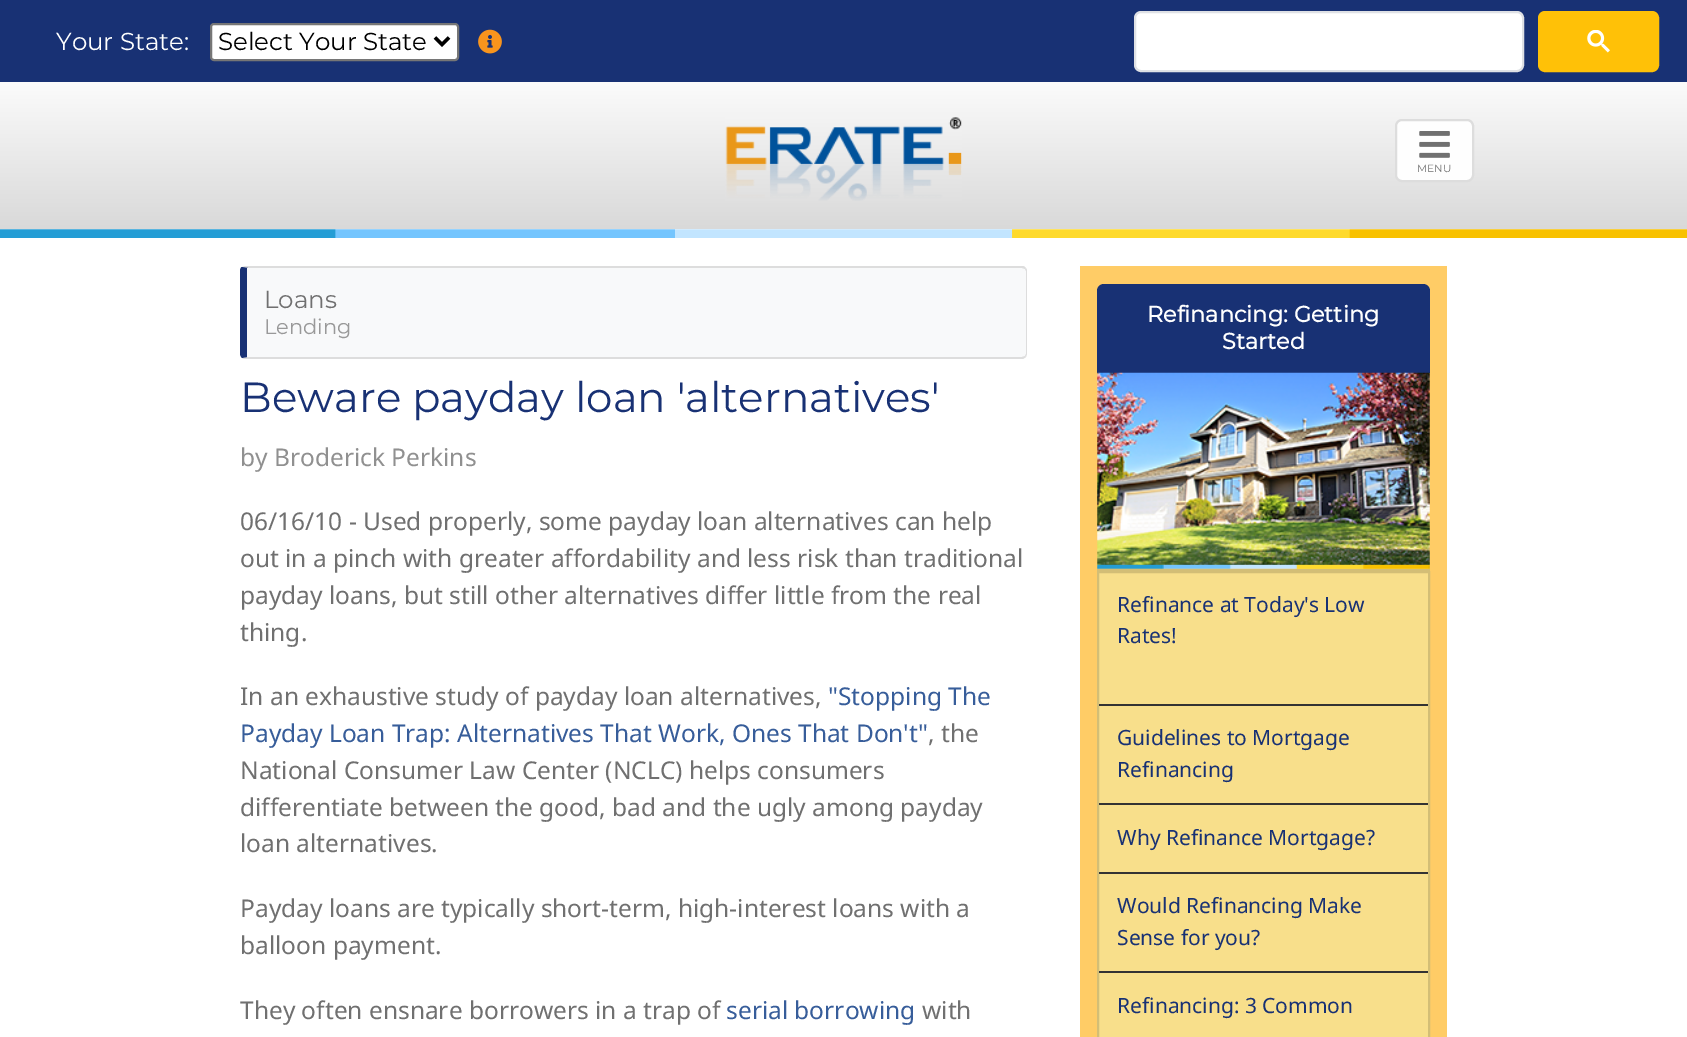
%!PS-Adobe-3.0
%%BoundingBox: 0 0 1687 1037
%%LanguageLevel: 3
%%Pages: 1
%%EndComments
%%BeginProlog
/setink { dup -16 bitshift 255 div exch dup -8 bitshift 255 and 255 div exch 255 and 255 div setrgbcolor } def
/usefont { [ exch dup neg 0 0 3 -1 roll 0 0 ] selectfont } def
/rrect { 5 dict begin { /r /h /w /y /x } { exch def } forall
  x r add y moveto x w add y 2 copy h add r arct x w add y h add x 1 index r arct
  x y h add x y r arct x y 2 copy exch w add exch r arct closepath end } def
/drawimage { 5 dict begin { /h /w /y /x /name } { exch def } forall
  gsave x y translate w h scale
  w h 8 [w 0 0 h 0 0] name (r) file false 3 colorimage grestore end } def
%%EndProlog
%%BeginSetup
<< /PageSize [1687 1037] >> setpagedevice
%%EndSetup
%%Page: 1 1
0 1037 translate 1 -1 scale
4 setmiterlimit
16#FFFFFF setink
0 0 1687 1037 rectfill
16#183174 setink
0 0 1687 82 rectfill
/Montserrat-Thin 24.5 usefont
16#FFFFFF setink
56 50 moveto (Your State:) show
211 24 247 36 3 rrect gsave fill grestore
16#767676 setink
2 setlinewidth
stroke
16#000000 setink
3.5 setlinewidth
435 37.5 moveto 442 44.5 lineto 449 37.5 lineto stroke
218 50 moveto (Select Your State) show
(img1.raw) 478 29 24 25 drawimage
16#FFFFFF setink
1135 12 388 59 6 rrect gsave fill grestore
16#DFE1E5 setink
2 setlinewidth
stroke
16#FFC107 setink
1539 12 119 59 6 rrect gsave fill grestore
stroke
(img2.raw) 1587 30 23 23 drawimage
gsave 0 82 moveto 1687 82 lineto 1687 229 lineto 0 229 lineto closepath clip newpath
<< /ShadingType 2 /ColorSpace /DeviceRGB /Coords [844 82 844 229] /Extend [true true] /Function << /FunctionType 2 /Domain [0 1] /C0 [0.984 0.984 0.984] /C1 [0.851 0.851 0.851] /N 1 >> >> shfill grestore
(img3.raw) 725 117 237 84 drawimage
16#FEFEFE setink
1396 120 77 61 6 rrect gsave fill grestore
16#DDDDDD setink
stroke
(img4.raw) 1419 131 31 27 drawimage
/Montserrat-Thin 10.5 usefont
16#707070 setink
1417 172 moveto (MENU) show
(img5.raw) 0 229 1687 9 drawimage
16#F8F9FA setink
247 268 moveto 1022 268 lineto 1024 268 1026 269 1026 271 curveto 1026 354 lineto 1026 355 1024 357 1022 357 curveto 247 357 lineto closepath fill
16#DDDDDD setink
245 266 moveto 242 267 lineto 248 268 lineto 1022 268 lineto 1025 269 lineto 1026 268 lineto 1025 267 1024 266 1022 266 curveto closepath fill
1026 268 moveto 1027 270 lineto 1027 354 lineto 1026 357 lineto 1025 356 lineto 1026 354 lineto 1026 271 lineto 1025 269 lineto closepath fill
244 359 moveto 242 358 lineto 247 357 lineto 1022 357 lineto 1025 356 lineto 1026 357 lineto 1023 359 lineto closepath fill
16#183174 setink
247 268 moveto 248 268 lineto 242 267 lineto 241 267 240 269 240 271 curveto 240 354 lineto 240 355 241 357 242 358 curveto 247 357 lineto closepath fill
/Montserrat-Thin 24.5 usefont
16#707070 setink
264 308 moveto (Loans) show
/Montserrat-Thin 21 usefont
16#999999 setink
264 334 moveto (Lending) show
/Montserrat-Thin 42 usefont
16#183174 setink
240 412 moveto (Beware payday loan 'alternatives') show
/NotoSans-Regular 24.5 usefont
16#909090 setink
240 466 moveto (by Broderick Perkins) show
16#707070 setink
[
    [(06/16/10 - Used properly, some payday loan alternatives can help) 240 530]
    [(out in a pinch with greater affordability and less risk than traditional) 240 567]
    [(payday loans, but still other alternatives differ little from the real) 240 604]
    [(thing.) 240 641]
    [(In an exhaustive study of payday loan alternatives,) 240 705]
] { aload pop moveto show } forall
16#375D9A setink
828 705 moveto ("Stopping The) show
240 742 moveto (Payday Loan Trap: Alternatives That Work, Ones That Don't") show
16#707070 setink
[
    [(, the) 928 742]
    [(National Consumer Law Center \(NCLC\) helps consumers) 240 779]
    [(differentiate between the good, bad and the ugly among payday) 240 816]
    [(loan alternatives.) 240 852]
    [(Payday loans are typically short-term, high-interest loans with a) 240 917]
    [(balloon payment.) 240 954]
    [(They often ensnare borrowers in a trap of) 240 1019]
] { aload pop moveto show } forall
16#375D9A setink
726 1019 moveto (serial borrowing) show
16#707070 setink
922 1019 moveto (with) show
16#FFCC66 setink
1080 266 367 771 rectfill
16#183174 setink
1104 284 moveto 1423 284 lineto 1427 284 1430 287 1430 291 curveto 1430 373 lineto 1097 373 lineto 1097 291 lineto 1097 287 1100 284 1104 284 curveto closepath fill
/Montserrat-Bold 22.4 usefont
16#FFFFFF setink
1147 322 moveto (Refinancing: Getting) show
1222 349 moveto (Started) show
16#D3BE76 setink
1097 569 333 2 rectfill
(img6.raw) 1097 372 333 197 drawimage
16#F8DF8B setink
1098 572 moveto 1429 572 lineto 1429 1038 lineto 1098 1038 lineto closepath gsave fill grestore
16#D3BE76 setink
stroke
16#333333 setink
1099 704 329 2 rectfill
/NotoSans-Regular 21 usefont
16#183174 setink
1117 612 moveto (Refinance at Today's Low) show
1117 643 moveto (Rates!) show
16#333333 setink
1099 803 329 2 rectfill
16#183174 setink
1117 745 moveto (Guidelines to Mortgage) show
1117 777 moveto (Refinancing) show
16#333333 setink
1099 872 329 2 rectfill
16#183174 setink
1117 845 moveto (Why Refinance Mortgage?) show
16#333333 setink
1099 971 329 2 rectfill
16#183174 setink
[
    [(Would Refinancing Make) 1117 913]
    [(Sense for you?) 1117 945]
    [(Refinancing: 3 Common) 1117 1013]
] { aload pop moveto show } forall
showpage
%%EOF
